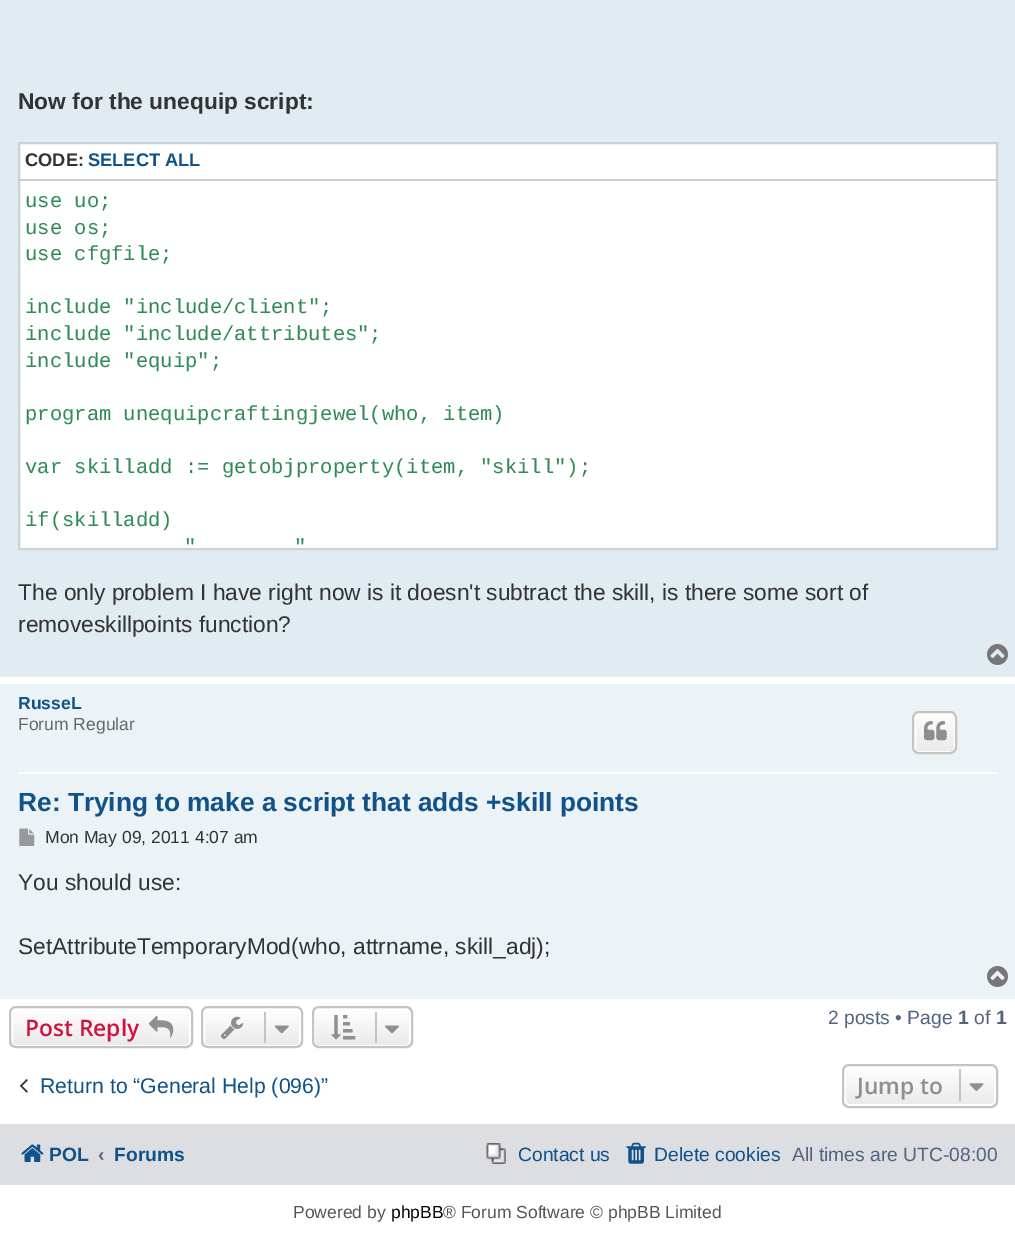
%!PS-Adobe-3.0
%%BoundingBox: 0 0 1015 1238
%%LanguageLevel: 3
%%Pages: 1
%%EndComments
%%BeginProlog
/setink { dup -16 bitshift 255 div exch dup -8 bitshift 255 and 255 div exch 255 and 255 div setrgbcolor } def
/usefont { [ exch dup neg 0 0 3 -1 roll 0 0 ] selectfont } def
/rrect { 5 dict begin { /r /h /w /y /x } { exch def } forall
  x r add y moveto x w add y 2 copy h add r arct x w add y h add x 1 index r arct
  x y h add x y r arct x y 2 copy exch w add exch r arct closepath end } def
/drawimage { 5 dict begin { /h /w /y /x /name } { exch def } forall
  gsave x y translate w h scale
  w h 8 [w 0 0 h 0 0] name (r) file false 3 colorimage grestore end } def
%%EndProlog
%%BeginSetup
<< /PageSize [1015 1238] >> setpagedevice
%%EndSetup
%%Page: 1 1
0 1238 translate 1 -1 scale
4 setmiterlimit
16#FFFFFF setink
0 0 1015 1238 rectfill
16#E1EBF2 setink
0 0 1015 677 rectfill
/LiberationSans-Bold 22.75 usefont
16#333333 setink
18 109 moveto (Now for the unequip script:) show
16#FFFFFF setink
19 143 moveto 997 143 lineto 997 549 lineto 19 549 lineto closepath gsave fill grestore
16#C9D2D8 setink
2 setlinewidth
stroke
16#CCCCCC setink
19 179 977 2 rectfill
/LiberationSans-Bold 18.25 usefont
16#333333 setink
25 166 moveto (CODE:) show
16#105289 setink
88 166 moveto (SELECT ALL) show
/LiberationMono-Regular 20.5 usefont
16#2E8B57 setink
[
    [(use uo;) 25 207]
    [(use os;) 25 234]
    [(use cfgfile;) 25 260]
    [(include "include/client";) 25 313]
    [(include "include/attributes";) 25 340]
    [(include "equip";) 25 367]
    [(program unequipcraftingjewel\(who, item\)) 25 420]
    [(var skilladd := getobjproperty\(item, "skill"\);) 25 473]
    [(if\(skilladd\)) 25 526]
    [(") 184 553]
    [(") 294 553]
] { aload pop moveto show } forall
/LiberationSans-Regular 22.75 usefont
16#333333 setink
18 600 moveto (The only problem I have right now is it doesn't subtract the skill, is there some sort of) show
18 632 moveto (removeskillpoints function?) show
(img1.raw) 987 644 21 21 drawimage
16#ECF3F7 setink
0 684 1015 315 rectfill
16#FFFFFF setink
18 772 980 2 rectfill
/LiberationSans-Bold 17.5 usefont
16#105289 setink
18 709 moveto (RusseL) show
/LiberationSans-Regular 17.5 usefont
16#666666 setink
18 730 moveto (Forum Regular) show
gsave
912 711 45 43 7 rrect clip newpath
gsave 912 712 moveto 957 712 lineto 957 753 lineto 912 753 lineto closepath clip newpath
<< /ShadingType 2 /ColorSpace /DeviceRGB /Coords [935 712 935 753] /Extend [true true] /Function << /FunctionType 2 /Domain [0 1] /C0 [1 1 1] /C1 [0.914 0.914 0.914] /N 1 >> >> shfill grestore
grestore
16#FFFFFF setink
915 713 40 39 4 rrect stroke
16#C7C3BF setink
913 712 43 41 6 rrect stroke
(img2.raw) 924 721 23 20 drawimage
/LiberationSans-Bold 26.25 usefont
16#105289 setink
18 811 moveto (Re: Trying to make a script that adds +skill points) show
(img3.raw) 19 828 16 18 drawimage
/LiberationSans-Regular 17.5 usefont
16#333333 setink
45 843 moveto (Mon May 09, 2011 4:07 am) show
/LiberationSans-Regular 22.75 usefont
18 890 moveto (You should use:) show
18 954 moveto (SetAttributeTemporaryMod\(who, attrname, skill_adj\);) show
(img4.raw) 987 966 21 21 drawimage
gsave
9 1006 184 42 7 rrect clip newpath
gsave 9 1008 moveto 193 1008 lineto 193 1047 lineto 9 1047 lineto closepath clip newpath
<< /ShadingType 2 /ColorSpace /DeviceRGB /Coords [101 1008 101 1047] /Extend [true true] /Function << /FunctionType 2 /Domain [0 1] /C0 [1 1 1] /C1 [0.914 0.914 0.914] /N 1 >> >> shfill grestore
grestore
16#FFFFFF setink
12 1009 178 37 4 rrect stroke
16#C7C3BF setink
10 1007 182 40 6 rrect stroke
/OpenSans-SemiBold 22.75 usefont
16#D31141 setink
25 1036 moveto (Post Reply) show
(img5.raw) 148 1016 26 22 drawimage
gsave
201 1006 102 42 7 rrect clip newpath
gsave 201 1008 moveto 303 1008 lineto 303 1047 lineto 201 1047 lineto closepath clip newpath
<< /ShadingType 2 /ColorSpace /DeviceRGB /Coords [252 1008 252 1047] /Extend [true true] /Function << /FunctionType 2 /Domain [0 1] /C0 [1 1 1] /C1 [0.914 0.914 0.914] /N 1 >> >> shfill grestore
grestore
16#FFFFFF setink
204 1009 96 37 4 rrect stroke
16#C7C3BF setink
202 1007 100 40 6 rrect stroke
(img6.raw) 220 1016 24 24 drawimage
264 1012 2 31 rectfill
(img7.raw) 274 1025 15 9 drawimage
gsave
312 1006 101 42 7 rrect clip newpath
gsave 312 1008 moveto 413 1008 lineto 413 1047 lineto 312 1047 lineto closepath clip newpath
<< /ShadingType 2 /ColorSpace /DeviceRGB /Coords [362 1008 362 1047] /Extend [true true] /Function << /FunctionType 2 /Domain [0 1] /C0 [1 1 1] /C1 [0.914 0.914 0.914] /N 1 >> >> shfill grestore
grestore
16#FFFFFF setink
314 1009 96 37 4 rrect stroke
16#C7C3BF setink
313 1007 99 40 6 rrect stroke
(img8.raw) 331 1015 25 25 drawimage
375 1012 2 31 rectfill
(img9.raw) 385 1025 14 9 drawimage
/LiberationSans-Regular 19.25 usefont
16#536482 setink
828 1024 moveto (2 posts • Page) show
/LiberationSans-Bold 19.25 usefont
958 1024 moveto (1) show
/LiberationSans-Regular 19.25 usefont
974 1024 moveto (of) show
/LiberationSans-Bold 19.25 usefont
996 1024 moveto (1) show
(img10.raw) 19 1079 9 14 drawimage
/LiberationSans-Regular 21.25 usefont
16#105289 setink
40 1093 moveto (Return to “General Help \(096\)”) show
gsave
842 1064 156 44 7 rrect clip newpath
gsave 842 1066 moveto 998 1066 lineto 998 1106 lineto 842 1106 lineto closepath clip newpath
<< /ShadingType 2 /ColorSpace /DeviceRGB /Coords [920 1066 920 1106] /Extend [true true] /Function << /FunctionType 2 /Domain [0 1] /C0 [1 1 1] /C1 [0.914 0.914 0.914] /N 1 >> >> shfill grestore
grestore
16#FFFFFF setink
845 1067 150 38 4 rrect stroke
16#C7C3BF setink
843 1065 154 42 6 rrect stroke
/OpenSans-SemiBold 22.75 usefont
16#8F8F8F setink
857 1094 moveto (Jump to) show
16#C7C3BF setink
959 1069 2 32 rectfill
(img11.raw) 969 1083 15 8 drawimage
16#DCDEE2 setink
0 1124 1015 61 rectfill
(img12.raw) 21 1144 23 18 drawimage
/LiberationSans-Bold 19.25 usefont
16#105289 setink
49 1161 moveto (POL) show
16#536482 setink
98 1161 moveto (‹) show
16#105289 setink
114 1161 moveto (Forums) show
(img13.raw) 486 1143 20 21 drawimage
/LiberationSans-Regular 19.25 usefont
518 1161 moveto (Contact us) show
(img14.raw) 626 1142 20 22 drawimage
654 1161 moveto (Delete cookies) show
16#536482 setink
792 1161 moveto (All times are UTC-08:00) show
/LiberationSans-Regular 17.5 usefont
16#555555 setink
293 1218 moveto (Powered by) show
16#000000 setink
391 1218 moveto (phpBB) show
16#555555 setink
443 1218 moveto (® Forum Software © phpBB Limited) show
showpage
%%EOF
